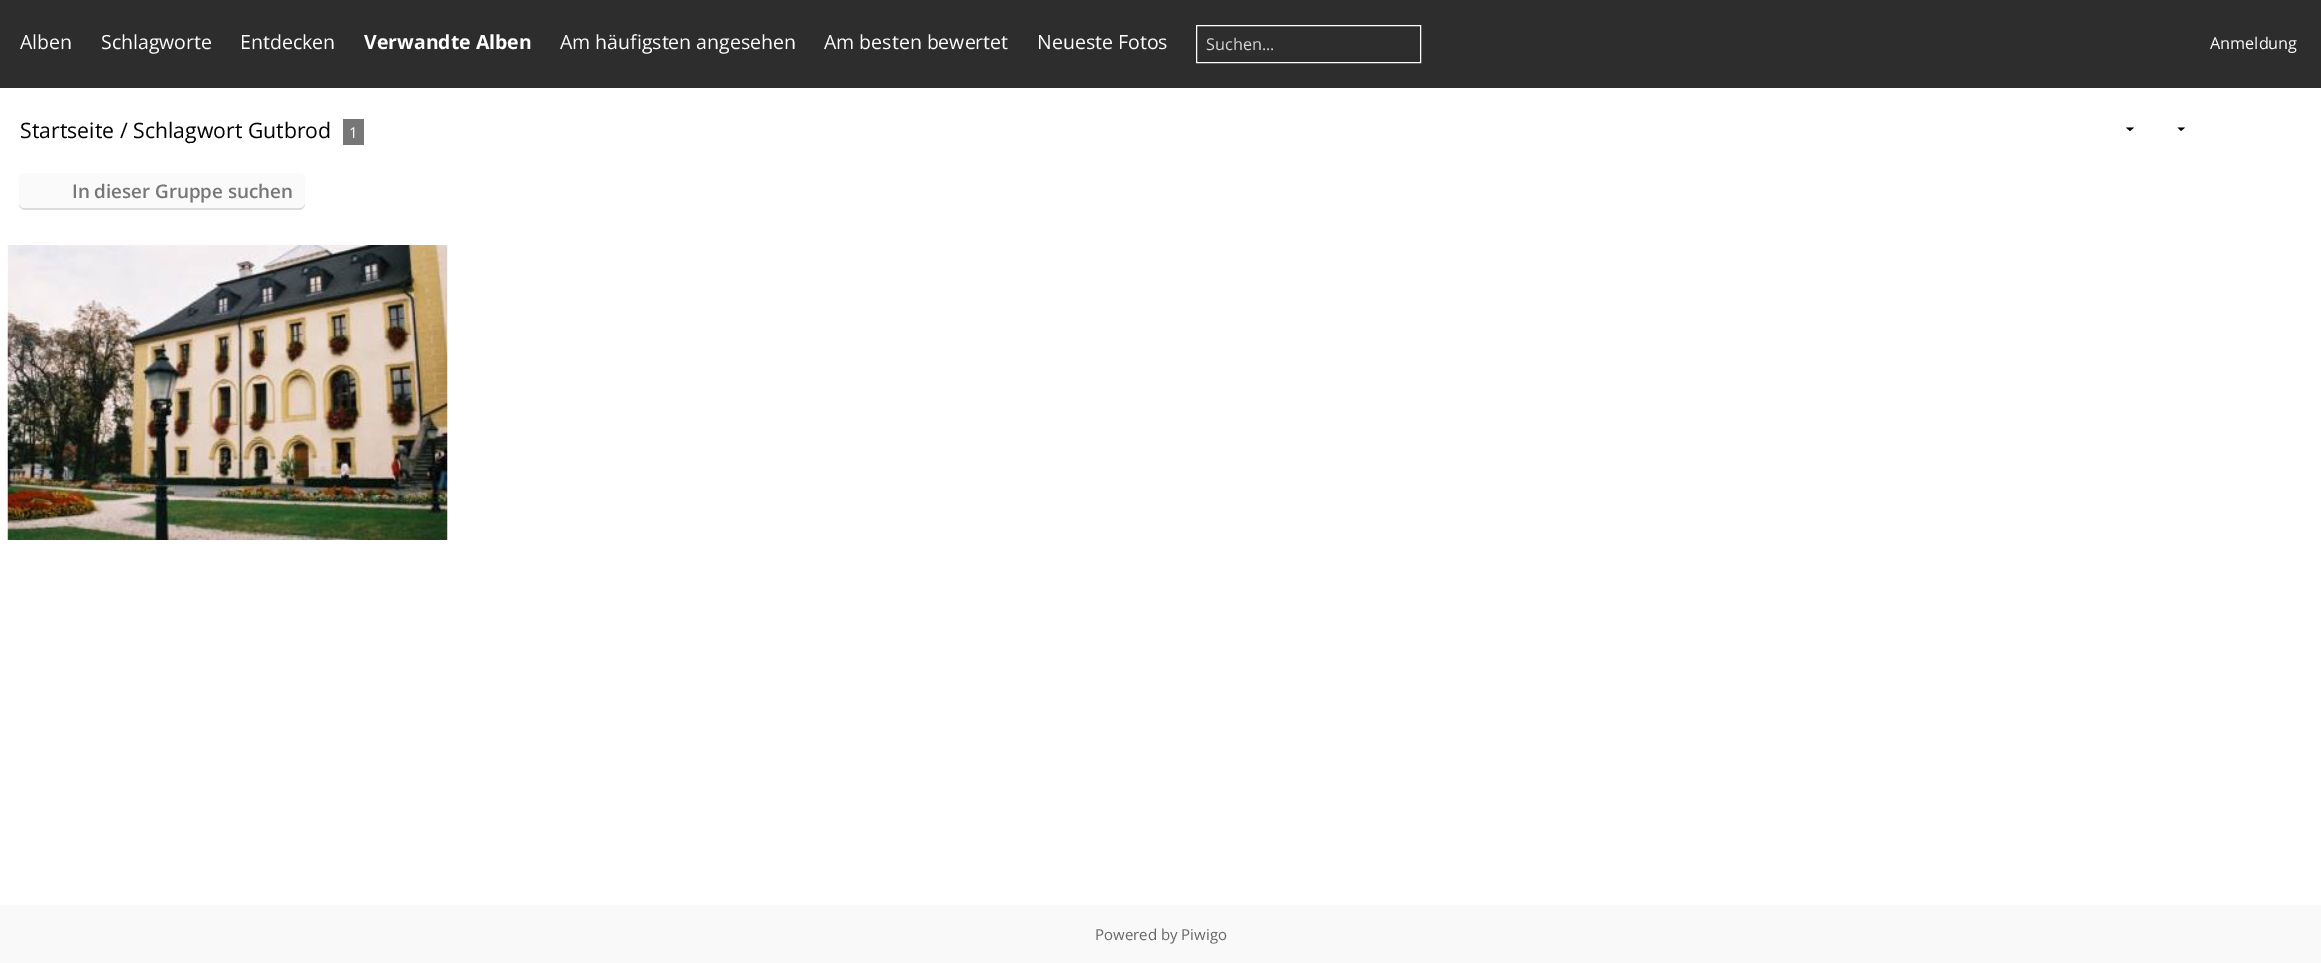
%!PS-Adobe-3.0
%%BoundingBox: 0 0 2321 963
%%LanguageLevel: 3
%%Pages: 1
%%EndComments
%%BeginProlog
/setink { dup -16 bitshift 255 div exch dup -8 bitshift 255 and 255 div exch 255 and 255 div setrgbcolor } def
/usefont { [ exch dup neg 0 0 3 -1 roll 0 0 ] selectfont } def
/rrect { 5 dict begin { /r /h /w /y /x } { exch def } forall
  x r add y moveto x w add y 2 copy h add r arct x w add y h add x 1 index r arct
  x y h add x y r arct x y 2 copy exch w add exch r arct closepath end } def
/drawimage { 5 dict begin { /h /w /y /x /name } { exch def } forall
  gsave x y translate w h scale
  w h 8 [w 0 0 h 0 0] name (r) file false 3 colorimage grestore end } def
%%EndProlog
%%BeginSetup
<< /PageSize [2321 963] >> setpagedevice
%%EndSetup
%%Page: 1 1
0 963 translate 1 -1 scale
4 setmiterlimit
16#FFFFFF setink
0 0 2321 963 rectfill
16#2D2D2D setink
0 0 2321 88 rectfill
/OpenSans-Regular 19.5 usefont
16#FFFFFF setink
[
    [(Alben) 20 49]
    [(Schlagworte) 101 49]
    [(Entdecken) 240 49]
] { aload pop moveto show } forall
/OpenSans-Bold 19.5 usefont
364 49 moveto (Verwandte Alben) show
/OpenSans-Regular 19.5 usefont
[
    [(Am häufigsten angesehen) 560 49]
    [(Am besten bewertet) 824 49]
    [(Neueste Fotos) 1037 49]
] { aload pop moveto show } forall
1196.5 25.5 224 37 rectstroke
/OpenSans-Regular 16.25 usefont
16#D6D6D6 setink
1206 50 moveto (Suchen...) show
16#FFFFFF setink
2210 49 moveto (Anmeldung) show
/OpenSans-Regular 21.25 usefont
16#000000 setink
20 138 moveto (Startseite / Schlagwort Gutbrod) show
16#777777 setink
343 119 21 26 rectfill
/OpenSans-Regular 15 usefont
16#FFFFFF setink
349 138 moveto (1) show
16#000000 setink
2126 127.5 moveto 2134 127.5 lineto 2130 131 lineto closepath 2177.5 127.5 moveto 2185 127.5 lineto 2181 131 lineto closepath fill
16#DBDBDB setink
19 203 moveto 19 204 lineto 19 207 22 210 25 210 curveto 299 210 lineto 302 210 305 207 305 204 curveto 305 201 lineto 305 205 302 208 299 208 curveto 25 208 lineto 22 208 20 206 19 203 curveto closepath fill
16#FAFAFA setink
19 173 286 35 6 rrect fill
/OpenSans-SemiBold 18.75 usefont
16#777777 setink
72 198 moveto (In dieser Gruppe suchen) show
(img1.raw) 7 245 441 295 drawimage
16#F9F9F9 setink
0 905 2321 58 rectfill
/OpenSans-Regular 15 usefont
16#666666 setink
1095 940 moveto (Powered by Piwigo) show
showpage
%%EOF
